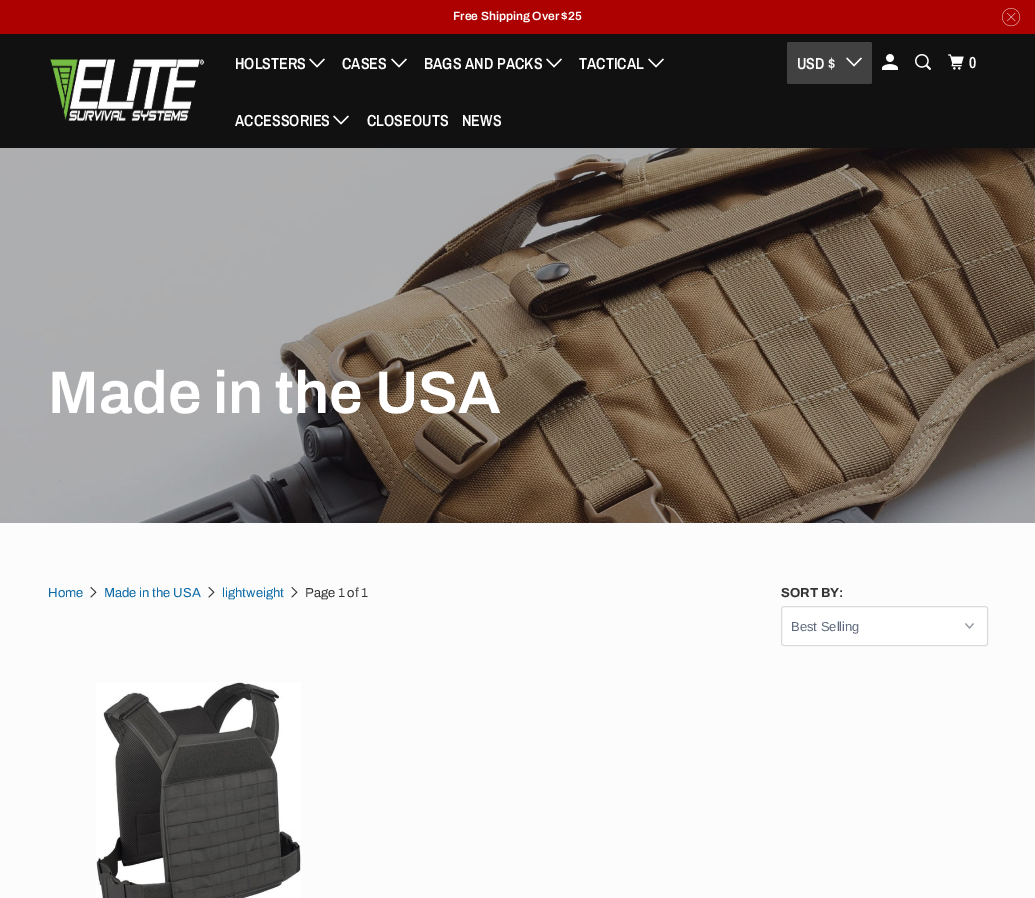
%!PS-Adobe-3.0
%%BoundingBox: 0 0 1035 898
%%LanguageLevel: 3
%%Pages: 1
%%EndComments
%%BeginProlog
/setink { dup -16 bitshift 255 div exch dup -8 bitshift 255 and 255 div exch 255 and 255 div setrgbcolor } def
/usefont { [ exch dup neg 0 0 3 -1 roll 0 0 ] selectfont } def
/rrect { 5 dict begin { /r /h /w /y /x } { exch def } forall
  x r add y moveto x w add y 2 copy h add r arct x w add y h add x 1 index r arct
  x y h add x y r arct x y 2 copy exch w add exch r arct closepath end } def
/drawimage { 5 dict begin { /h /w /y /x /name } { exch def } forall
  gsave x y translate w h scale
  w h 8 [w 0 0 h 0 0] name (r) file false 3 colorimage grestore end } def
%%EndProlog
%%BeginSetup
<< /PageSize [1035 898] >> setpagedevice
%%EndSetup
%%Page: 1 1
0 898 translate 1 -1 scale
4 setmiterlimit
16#FCFCFC setink
0 0 1035 898 rectfill
16#AD0000 setink
0 0 1035 34 rectfill
/Archivo-SemiBold 12 usefont
16#FFFFFF setink
453 20 moveto (Free Shipping Over $25) show
(img1.raw) 1002 8 18 19 drawimage
16#111111 setink
0 34 1035 114 rectfill
(img2.raw) 50 59 155 62 drawimage
/ArchivoNarrow-SemiBold 16 usefont
16#FFFFFF setink
235 69 moveto (HOLSTERS) show
(img3.raw) 309 58 16 10 drawimage
342 69 moveto (CASES) show
(img3.raw) 391 58 16 10 drawimage
424 69 moveto (BAGS AND PACKS) show
(img3.raw) 546 58 16 10 drawimage
579 69 moveto (TACTICAL) show
(img3.raw) 648 58 16 10 drawimage
235 126 moveto (ACCESSORIES) show
(img3.raw) 333 115 16 10 drawimage
367 126 moveto (CLOSEOUTS) show
462 126 moveto (NEWS) show
16#414141 setink
787 42 85 42 2 rrect fill
16#FFFFFF setink
797 69 moveto (USD $) show
(img4.raw) 846 57 16 10 drawimage
(img5.raw) 882 54 16 16 drawimage
(img6.raw) 915 54 16 16 drawimage
(img7.raw) 948 54 16 16 drawimage
969 68 moveto (0) show
(img8.raw) 0 148 1035 375 drawimage
/Archivo-SemiBold 60 usefont
48 413 moveto (Made in the USA) show
/Archivo-Regular 13 usefont
16#0E6BA8 setink
48 597 moveto (Home) show
(img9.raw) 90 586 7 12 drawimage
104 597 moveto (Made in the USA) show
(img9.raw) 208 586 7 12 drawimage
222 597 moveto (lightweight) show
(img9.raw) 291 586 7 12 drawimage
16#333333 setink
305 597 moveto (Page 1 of 1) show
/Archivo-Bold 13 usefont
781 597 moveto (SORT BY:) show
16#FFFFFF setink
781 606 207 40 3 rrect fill
(img10.raw) 965 623 9 6 drawimage
16#D9DBDC setink
781.5 606.5 206 39 2.5 rrect stroke
/LiberationSans-Regular 13 usefont
16#5F6A7D setink
791 631 moveto (Best Selling) show
(img11.raw) 96 682 205 216 drawimage
showpage
%%EOF
